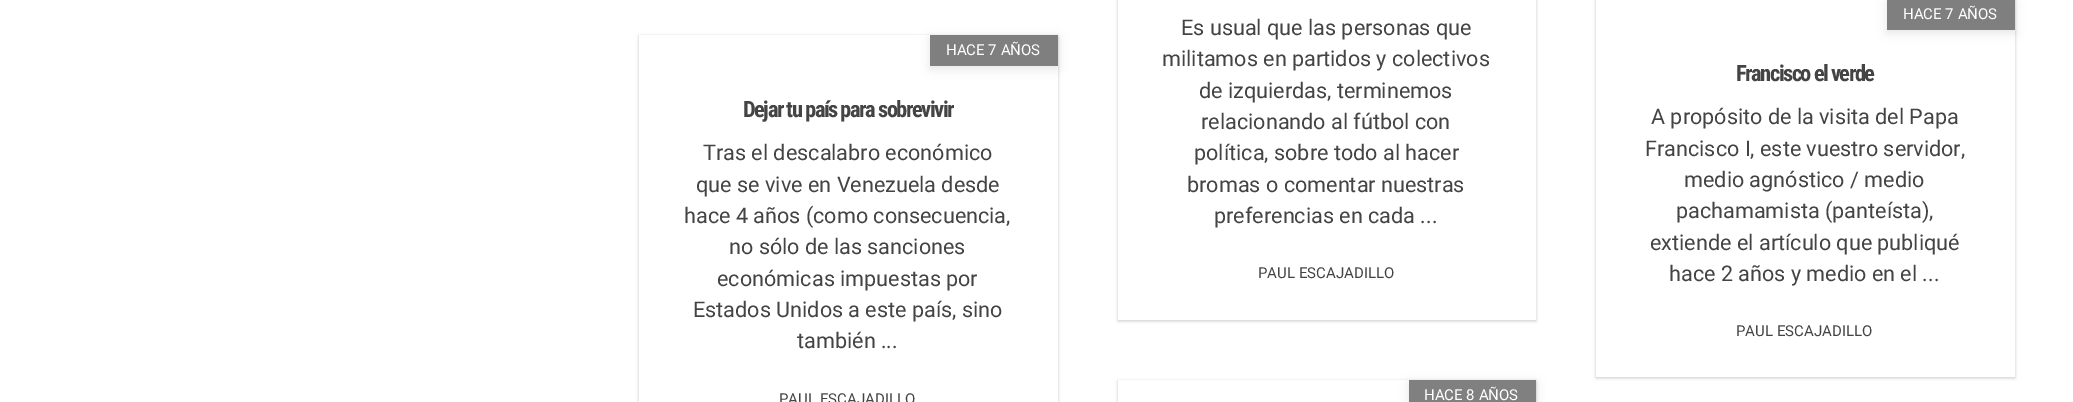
%!PS-Adobe-3.0
%%BoundingBox: 0 0 2073 402
%%LanguageLevel: 3
%%Pages: 1
%%EndComments
%%BeginProlog
/setink { dup -16 bitshift 255 div exch dup -8 bitshift 255 and 255 div exch 255 and 255 div setrgbcolor } def
/usefont { [ exch dup neg 0 0 3 -1 roll 0 0 ] selectfont } def
/setalpha { dup .setfillconstantalpha .setstrokeconstantalpha } def
/rrect { 5 dict begin { /r /h /w /y /x } { exch def } forall
  x r add y moveto x w add y 2 copy h add r arct x w add y h add x 1 index r arct
  x y h add x y r arct x y 2 copy exch w add exch r arct closepath end } def
/softshadow { 12 dict begin { /a /b /q /h /w /y /x } { exch def } forall gsave /was 0 def
  9 -2 -9 { dup b mul 4 div /e exch def 1 sub .425 mul 2.718 exch exp 1 add a .99 .min exch div /now exch def
    1 1 now sub 1 was sub div sub setalpha /was now def
    w h .min e 2 mul add 0 gt { x e sub y e sub w e 2 mul add h e 2 mul add
      q e add b .6 mul add w h .min 2 div e add .min 0 .max rrect fill } if } for grestore end } def
%%EndProlog
%%BeginSetup
<< /PageSize [2073 402] /PageUsesTransparency true >> setpagedevice
%%EndSetup
%%Page: 1 1
0 .pushpdf14devicefilter
0 402 translate 1 -1 scale
4 setmiterlimit
16#FFFFFF setink
0 0 2073 402 rectfill
16#000000 setink
639 36 419 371 0 1.5 0.2 softshadow
16#FFFFFF setink
639 35 419 367 rectfill
gsave
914 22 moveto 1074 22 lineto 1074 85 lineto 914 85 lineto closepath 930 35 moveto 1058 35 lineto 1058 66 lineto 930 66 lineto closepath eoclip newpath
16#000000 setink
930 38 128 31 0 5 0.1 softshadow
grestore
0.5 setalpha
16#000000 setink
930 35 128 31 rectfill
/Roboto-Regular 15 usefont
1 setalpha
16#FFFFFF setink
946 55 moveto (HACE 7 AÑOS) show
/RobotoCondensed-Bold 22.5 usefont
16#444444 setink
743 117 moveto -1.5 0 (Dejar tu país para sobrevivir) ashow
/Roboto-Regular 21.6 usefont
[
    [(Tras el descalabro económico) 703 160]
    [(que se vive en Venezuela desde) 696 192]
    [(hace 4 años \(como consecuencia,) 684 223]
    [(no sólo de las sanciones) 729 254]
    [(económicas impuestas por) 717 286]
    [(Estados Unidos a este país, sino) 693 317]
    [(también ...) 797 348]
] { aload pop moveto show } forall
/Roboto-Regular 15 usefont
779 404 moveto (PAUL ESCAJADILLO) show
16#000000 setink
1118 -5 418 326 0 1.5 0.2 softshadow
16#FFFFFF setink
1118 0 418 320 rectfill
/Roboto-Regular 21.6 usefont
16#444444 setink
[
    [(Es usual que las personas que) 1181 35]
    [(militamos en partidos y colectivos) 1162 66]
    [(de izquierdas, terminemos) 1199 98]
    [(relacionando al fútbol con) 1201 129]
    [(política, sobre todo al hacer) 1194 160]
    [(bromas o comentar nuestras) 1187 192]
    [(preferencias en cada ...) 1214 223]
] { aload pop moveto show } forall
/Roboto-Regular 15 usefont
1258 278 moveto (PAUL ESCAJADILLO) show
gsave
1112 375 moveto 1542 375 lineto 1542 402 lineto 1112 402 lineto closepath 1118 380 moveto 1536 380 lineto 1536 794 lineto 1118 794 lineto closepath eoclip newpath
16#000000 setink
1118 381 418 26 0 1.5 0.2 softshadow
grestore
16#000000 setink
1409 383 127 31 0 5 0.1 softshadow
16#808080 setink
1409 380 127 22 rectfill
16#FFFFFF setink
1424 400 moveto (HACE 8 AÑOS) show
16#000000 setink
1596 0 419 378 0 1.5 0.2 softshadow
16#FFFFFF setink
1596 0 419 377 rectfill
gsave
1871 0 moveto 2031 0 lineto 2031 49 lineto 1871 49 lineto closepath 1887 -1 moveto 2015 -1 lineto 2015 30 lineto 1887 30 lineto closepath eoclip newpath
16#000000 setink
1887 2 128 31 0 5 0.1 softshadow
grestore
0.5 setalpha
16#000000 setink
1887 0 128 30 rectfill
1 setalpha
16#FFFFFF setink
1903 19 moveto (HACE 7 AÑOS) show
/RobotoCondensed-Bold 22.5 usefont
16#444444 setink
1736 81 moveto -1.5 0 (Francisco el verde) ashow
/Roboto-Regular 21.6 usefont
[
    [(A propósito de la visita del Papa) 1651 124]
    [(Francisco I, este vuestro servidor,) 1645 156]
    [(medio agnóstico / medio) 1684 187]
    [(pachamamista \(panteísta\),) 1676 218]
    [(extiende el artículo que publiqué) 1650 250]
    [(hace 2 años y medio en el ...) 1669 281]
] { aload pop moveto show } forall
/Roboto-Regular 15 usefont
1736 336 moveto (PAUL ESCAJADILLO) show
.poppdf14devicefilter showpage
%%EOF
